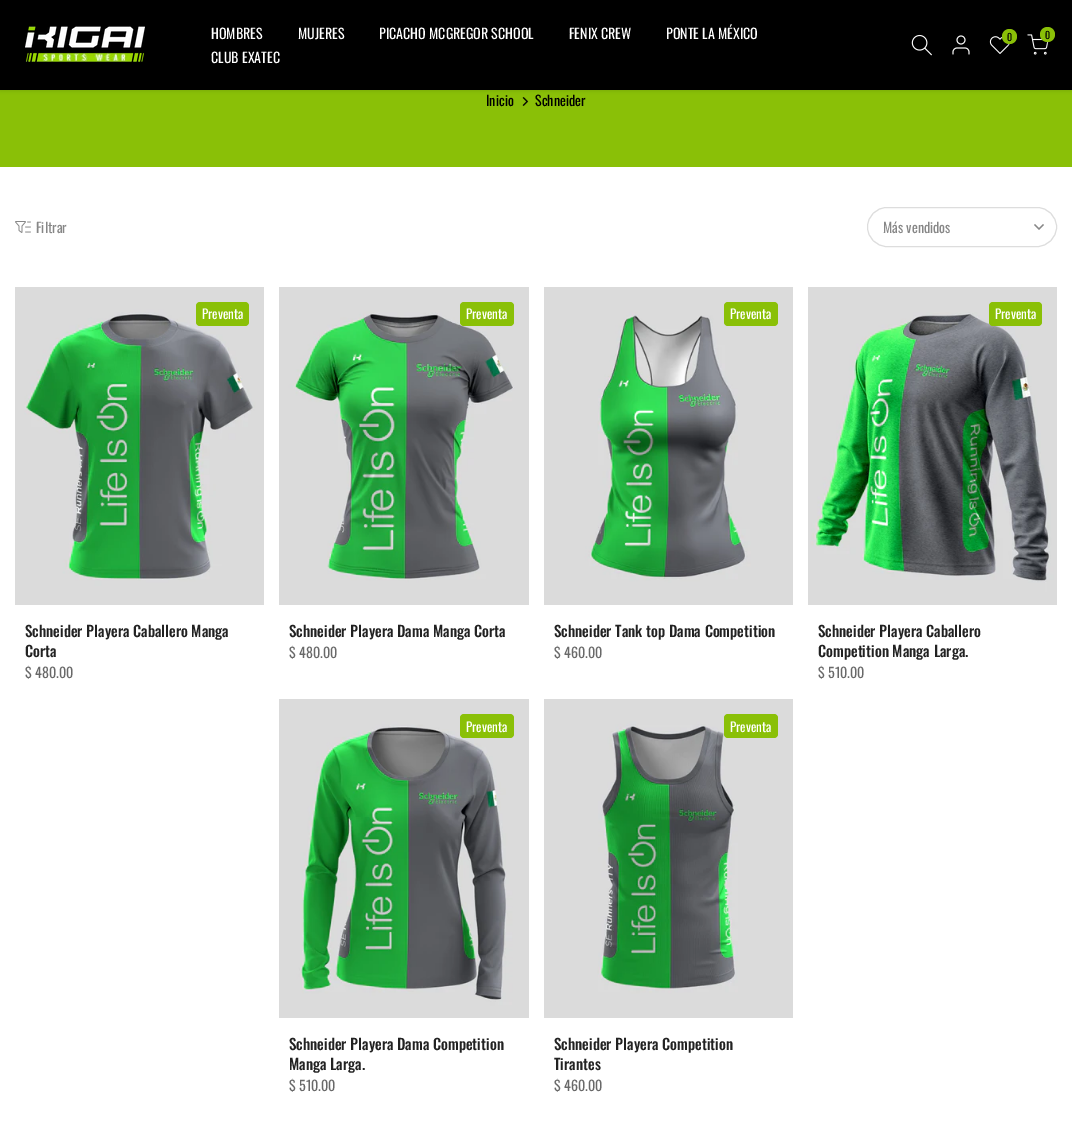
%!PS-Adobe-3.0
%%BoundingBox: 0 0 1072 1143
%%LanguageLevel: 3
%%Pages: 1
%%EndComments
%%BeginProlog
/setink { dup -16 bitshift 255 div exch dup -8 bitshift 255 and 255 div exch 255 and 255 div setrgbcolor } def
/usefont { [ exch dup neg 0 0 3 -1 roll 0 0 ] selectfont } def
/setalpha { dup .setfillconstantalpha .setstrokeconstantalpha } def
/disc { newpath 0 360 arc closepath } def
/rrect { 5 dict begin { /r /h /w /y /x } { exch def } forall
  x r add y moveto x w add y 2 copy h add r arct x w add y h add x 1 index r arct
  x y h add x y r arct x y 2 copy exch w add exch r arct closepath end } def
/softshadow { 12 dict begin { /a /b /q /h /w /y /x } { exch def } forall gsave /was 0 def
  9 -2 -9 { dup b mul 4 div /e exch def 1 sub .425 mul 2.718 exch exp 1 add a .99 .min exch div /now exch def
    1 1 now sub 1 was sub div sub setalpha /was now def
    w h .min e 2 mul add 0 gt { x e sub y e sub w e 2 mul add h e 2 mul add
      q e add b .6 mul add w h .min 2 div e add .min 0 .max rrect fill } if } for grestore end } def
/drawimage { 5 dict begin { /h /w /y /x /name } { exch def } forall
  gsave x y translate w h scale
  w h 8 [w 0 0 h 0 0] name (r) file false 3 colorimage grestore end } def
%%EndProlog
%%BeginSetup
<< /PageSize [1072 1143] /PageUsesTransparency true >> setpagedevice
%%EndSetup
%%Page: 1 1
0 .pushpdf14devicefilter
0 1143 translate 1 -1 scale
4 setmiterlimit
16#FFFFFF setink
0 0 1072 1143 rectfill
16#8AC007 setink
0 90 1072 77 rectfill
16#000000 setink
0 1 1072 90 0 1.5 0.1 softshadow
0 0 1072 90 rectfill
(img1.raw) 25 26 120 36 drawimage
/Oswald-Regular 14 usefont
16#FFFFFF setink
[
    [(HOMBRES) 211 39]
    [(MUJERES) 298 39]
    [(PICACHO MCGREGOR SCHOOL) 379 39]
    [(FENIX CREW) 569 39]
    [(PONTE LA MÉXICO) 666 39]
    [(CLUB EXATEC) 211 63]
] { aload pop moveto show } forall
(img2.raw) 911 34 21 22 drawimage
(img3.raw) 952 35 18 20 drawimage
(img4.raw) 989 36 21 18 drawimage
16#000000 setink
1003 30 15 15 7.5 1.5 0.3 softshadow
16#8AC007 setink
1009.5 36.5 7.5 disc fill
/Oswald-Regular 10 usefont
16#000000 setink
1007 41 moveto (0) show
(img5.raw) 1027 34 22 21 drawimage
1041 28 15 15 7.5 1.5 0.3 softshadow
16#8AC007 setink
1047.5 34.5 7.5 disc fill
16#000000 setink
1045 39 moveto (0) show
/Oswald-Regular 14 usefont
486 106 moveto (Inicio) show
(img6.raw) 522 97 7 9 drawimage
535 106 moveto (Schneider) show
(img7.raw) 15 221 16 12 drawimage
16#878787 setink
36 233 moveto (Filtrar) show
16#DDDDDD setink
867.5 207.5 189 39 19.5 rrect stroke
16#878787 setink
883 233 moveto (Más vendidos) show
1.1 setlinewidth
2 setlinecap
1043 225 moveto 1039 229 lineto 1035 225 lineto stroke
(img8.raw) 15 287 249 318 drawimage
16#8AC007 setink
196 302 53 24 4 rrect fill
/Oswald-Regular 13 usefont
16#FFFFFF setink
202 319 moveto (Preventa) show
/Oswald-Medium 15 usefont
16#222222 setink
25 637 moveto (Schneider Playera Caballero Manga) show
25 657 moveto (Corta) show
/Oswald-Regular 14 usefont
16#696969 setink
25 678 moveto ($ 480.00) show
(img9.raw) 279 287 250 318 drawimage
16#8AC007 setink
460 302 54 24 4 rrect fill
/Oswald-Regular 13 usefont
16#FFFFFF setink
466 319 moveto (Preventa) show
/Oswald-Medium 15 usefont
16#222222 setink
289 637 moveto (Schneider Playera Dama Manga Corta) show
/Oswald-Regular 14 usefont
16#696969 setink
289 658 moveto ($ 480.00) show
(img10.raw) 544 287 249 318 drawimage
16#8AC007 setink
724 302 54 24 4 rrect fill
/Oswald-Regular 13 usefont
16#FFFFFF setink
730 319 moveto (Preventa) show
/Oswald-Medium 15 usefont
16#222222 setink
554 637 moveto (Schneider Tank top Dama Competition) show
/Oswald-Regular 14 usefont
16#696969 setink
554 658 moveto ($ 460.00) show
(img11.raw) 808 287 249 318 drawimage
16#8AC007 setink
989 302 53 24 4 rrect fill
/Oswald-Regular 13 usefont
16#FFFFFF setink
995 319 moveto (Preventa) show
/Oswald-Medium 15 usefont
16#222222 setink
818 637 moveto (Schneider Playera Caballero) show
818 657 moveto (Competition Manga Larga.) show
/Oswald-Regular 14 usefont
16#696969 setink
818 678 moveto ($ 510.00) show
(img12.raw) 279 699 250 319 drawimage
16#8AC007 setink
460 714 54 24 4 rrect fill
/Oswald-Regular 13 usefont
16#FFFFFF setink
466 732 moveto (Preventa) show
/Oswald-Medium 15 usefont
16#222222 setink
289 1050 moveto (Schneider Playera Dama Competition) show
289 1070 moveto (Manga Larga.) show
/Oswald-Regular 14 usefont
16#696969 setink
289 1091 moveto ($ 510.00) show
(img13.raw) 544 699 249 319 drawimage
16#8AC007 setink
724 714 54 24 4 rrect fill
/Oswald-Regular 13 usefont
16#FFFFFF setink
730 732 moveto (Preventa) show
/Oswald-Medium 15 usefont
16#222222 setink
554 1050 moveto (Schneider Playera Competition) show
554 1070 moveto (Tirantes) show
/Oswald-Regular 14 usefont
16#696969 setink
554 1091 moveto ($ 460.00) show
.poppdf14devicefilter showpage
%%EOF
